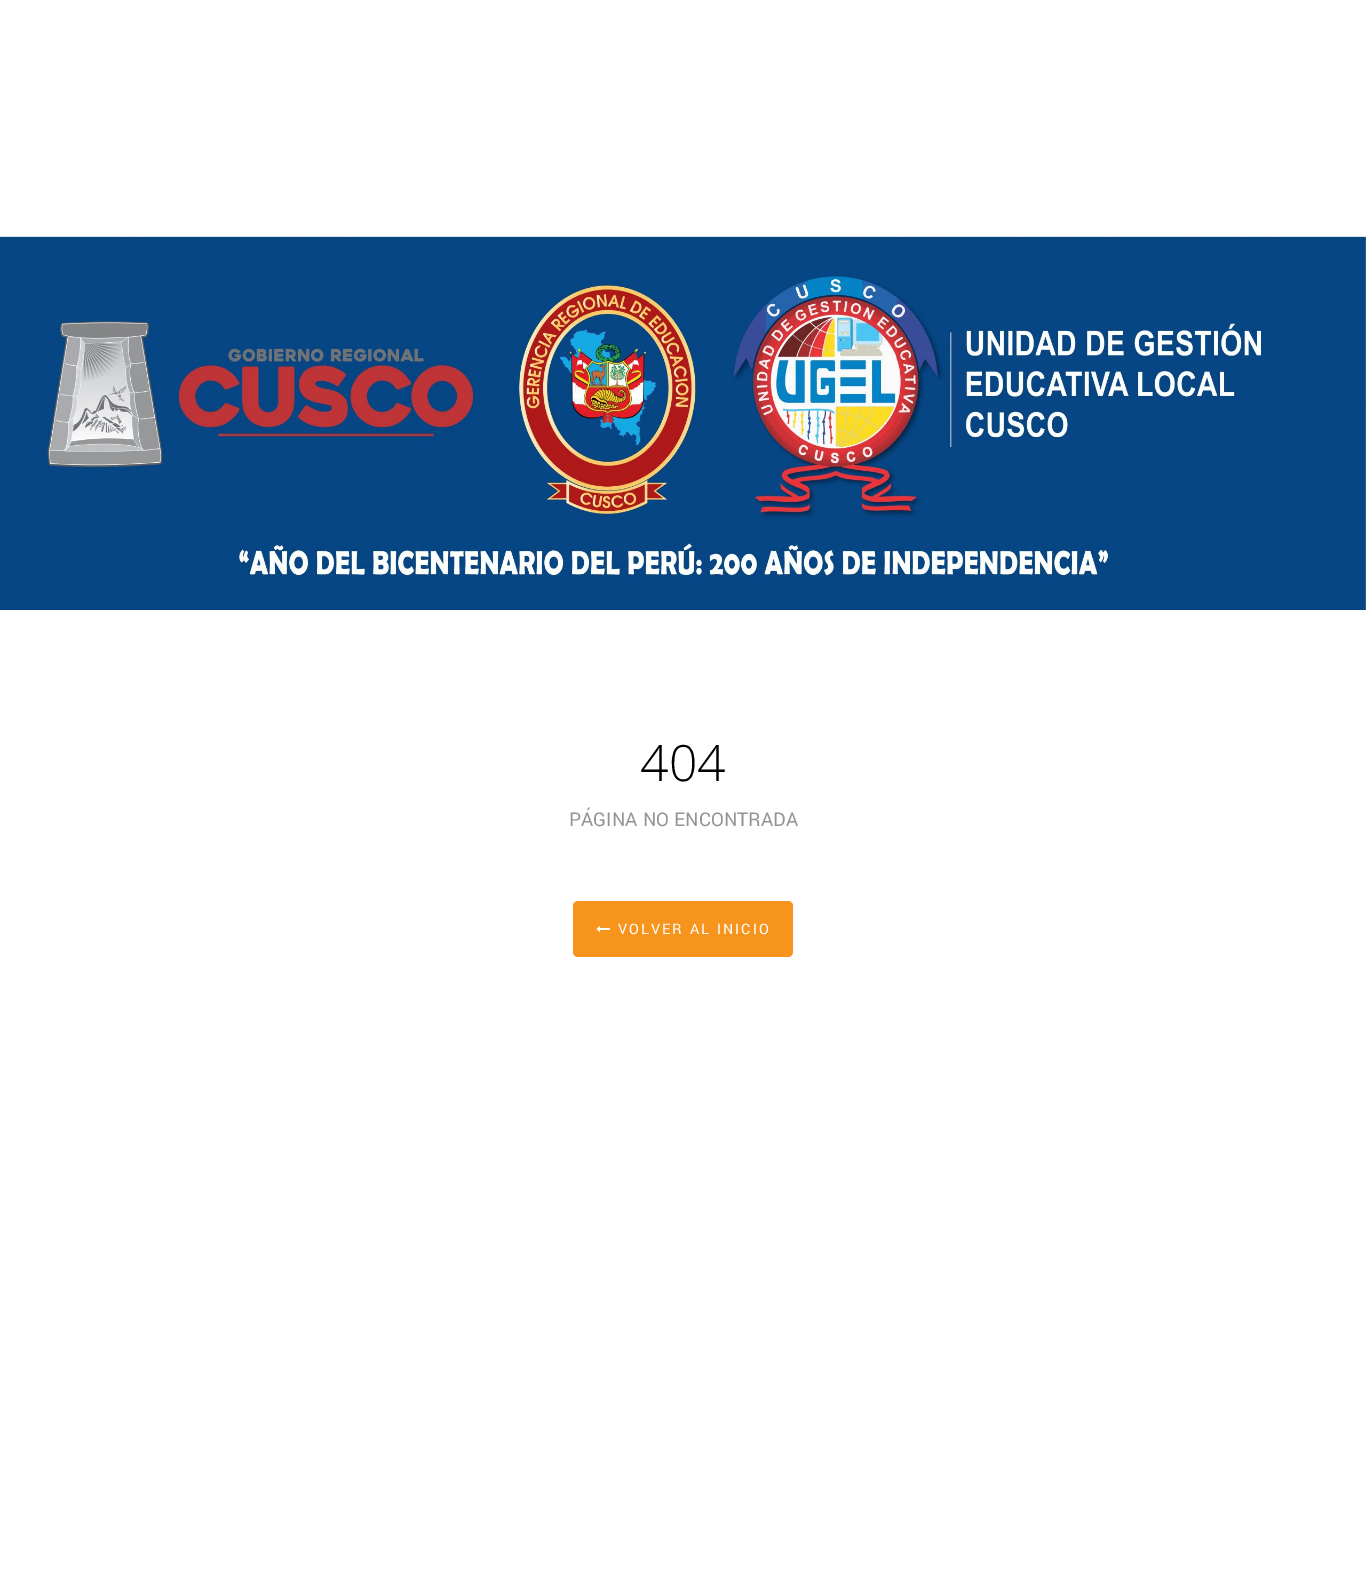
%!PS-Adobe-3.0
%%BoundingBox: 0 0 1366 1576
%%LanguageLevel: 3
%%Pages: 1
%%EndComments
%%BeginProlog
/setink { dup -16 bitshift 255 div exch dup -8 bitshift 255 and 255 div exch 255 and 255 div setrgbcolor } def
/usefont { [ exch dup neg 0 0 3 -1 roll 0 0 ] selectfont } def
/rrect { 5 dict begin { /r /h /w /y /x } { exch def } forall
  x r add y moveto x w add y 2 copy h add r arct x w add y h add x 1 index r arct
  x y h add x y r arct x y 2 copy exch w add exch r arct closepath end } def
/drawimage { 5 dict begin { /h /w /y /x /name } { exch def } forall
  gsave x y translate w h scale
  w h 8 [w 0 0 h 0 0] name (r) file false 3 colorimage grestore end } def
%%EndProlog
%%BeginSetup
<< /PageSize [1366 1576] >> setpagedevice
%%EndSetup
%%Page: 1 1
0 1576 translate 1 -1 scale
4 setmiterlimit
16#FFFFFF setink
0 0 1366 1576 rectfill
(img1.raw) 0 236 1366 374 drawimage
/OpenSans-Light 50 usefont
16#000000 setink
640 781 moveto (404) show
/Yantramanav-Regular 21 usefont
16#949494 setink
569 826 moveto (PÁGINA NO ENCONTRADA) show
16#F7941D setink
573 901 220 56 5 rrect fill
(img2.raw) 596 926 14 6 drawimage
/Yantramanav-Regular 16 usefont
16#FFFFFF setink
618 934 moveto 2 0 (VOLVER AL INICIO) ashow
showpage
%%EOF
